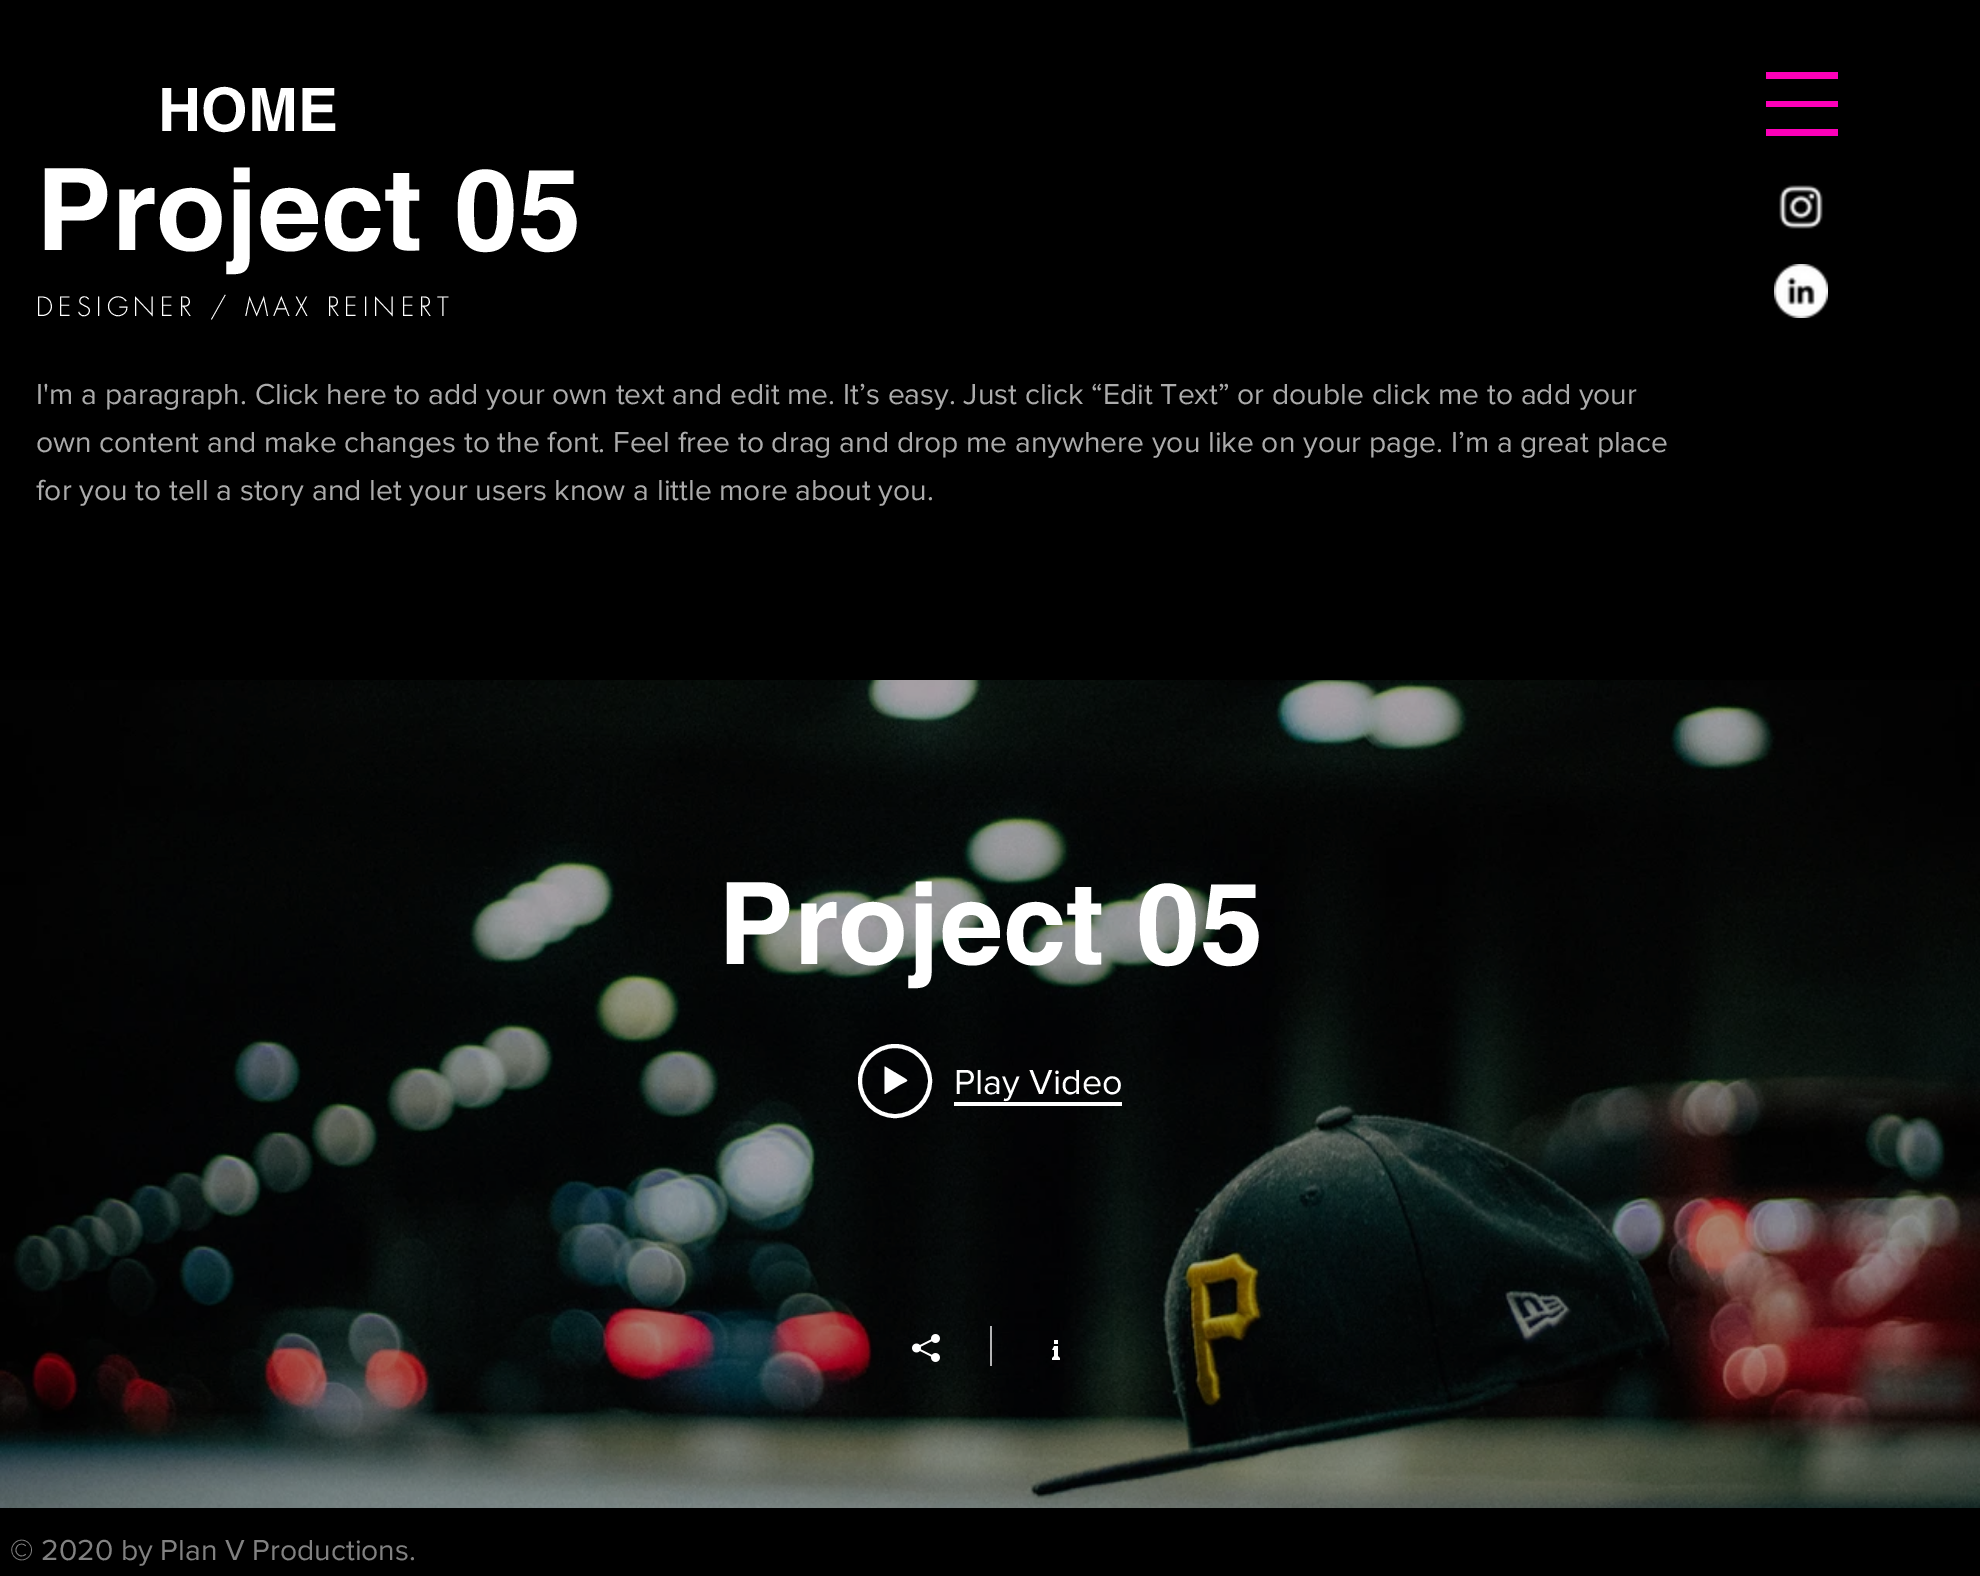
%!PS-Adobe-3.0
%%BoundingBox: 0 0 1980 1576
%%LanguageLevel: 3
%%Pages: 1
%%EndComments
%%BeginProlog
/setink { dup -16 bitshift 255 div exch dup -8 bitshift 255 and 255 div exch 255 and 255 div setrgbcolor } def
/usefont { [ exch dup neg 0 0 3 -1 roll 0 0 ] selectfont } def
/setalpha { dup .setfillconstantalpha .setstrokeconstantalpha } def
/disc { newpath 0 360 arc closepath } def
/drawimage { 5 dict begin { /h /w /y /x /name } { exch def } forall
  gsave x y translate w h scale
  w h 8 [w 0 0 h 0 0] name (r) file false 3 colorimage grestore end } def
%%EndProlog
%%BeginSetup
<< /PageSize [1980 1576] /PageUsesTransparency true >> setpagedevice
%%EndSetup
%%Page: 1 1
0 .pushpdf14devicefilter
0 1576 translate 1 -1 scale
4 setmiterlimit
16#000000 setink
0 0 1980 1576 rectfill
/helvetica-Bold 60 usefont
16#FFFFFF setink
158 131 moveto (HOME) show
[
    [1766 72 72 7 16#FC00B9]
    [1766 101 72 6 16#FC00B9]
    [1766 129 72 7 16#FC00B9]
] { aload pop setink rectfill } forall
(img1.raw) 1779 185 44 44 drawimage
(img2.raw) 1774 264 54 54 drawimage
/helvetica-Bold 114 usefont
16#FFFFFF setink
36 250 moveto (Project 05) show
/futura-Light 26 usefont
36 316 moveto 5.2 0 (DESIGNER / MAX REINERT) ashow
/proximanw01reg-Regular 30 usefont
16#ABABAB setink
[
    [(I'm a paragraph. Click here to add your own text and edit me. It’s easy. Just click “Edit Text” or double click me to add your) 36 404]
    [(own content and make changes to the font. Feel free to drag and drop me anywhere you like on your page. I’m a great place) 36 452]
    [(for you to tell a story and let your users know a little more about you.) 36 500]
] { aload pop moveto show } forall
(img3.raw) 0 680 1980 828 drawimage
/helvetica-Bold 114 usefont
16#FFFFFF setink
718 964 moveto (Project 05) show
4 setlinewidth
895 1081 35 disc stroke
885 1066.5 moveto 903.5 1077.5 lineto 909.5 1081.5 908.5 1080 899.5 1085 curveto 885 1094 lineto 884.5 1094 lineto 884.5 1066.5 lineto closepath fill
954 1102 168 4 rectfill
/proximanw01reg-Regular 36 usefont
954 1094 moveto (Play Video) show
(img4.raw) 912 1334 28 28 drawimage
0.7 setalpha
990 1326 2 40 rectfill
1 setalpha
(img5.raw) 1052 1340 8 20 drawimage
/proximanw01reg-Regular 30 usefont
16#818181 setink
10 1560 moveto (© 2020 by Plan V Productions.) show
.poppdf14devicefilter showpage
%%EOF
